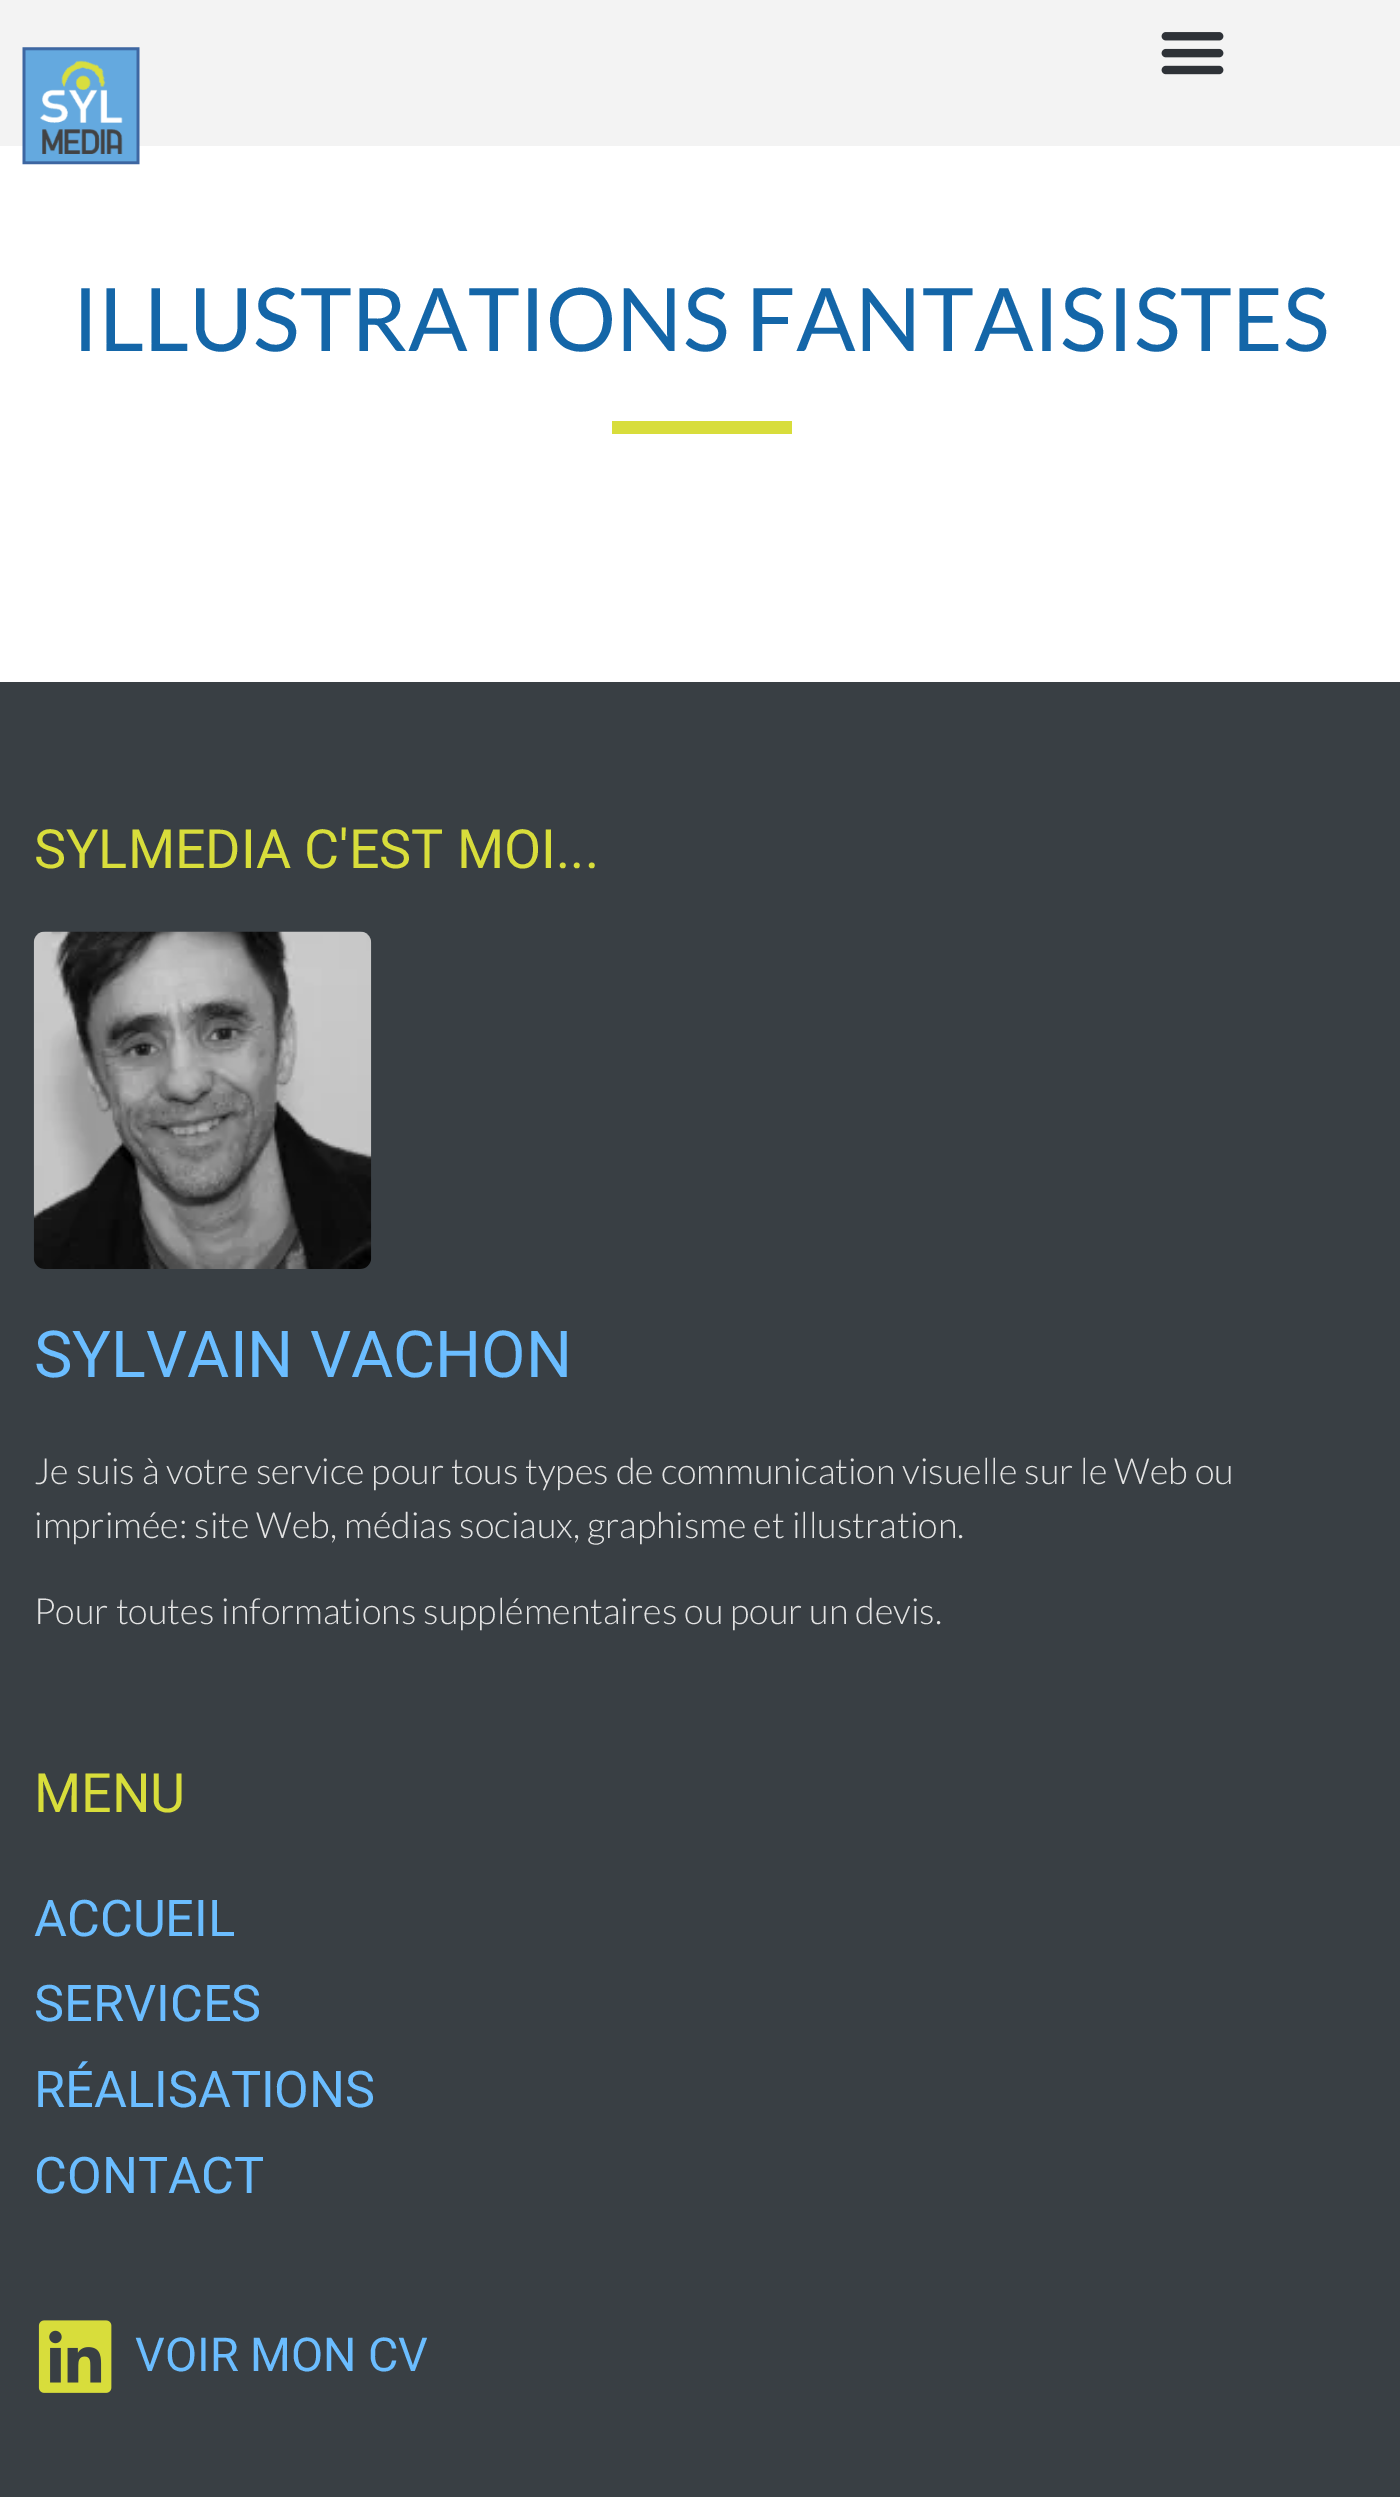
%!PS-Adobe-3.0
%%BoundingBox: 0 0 1400 2497
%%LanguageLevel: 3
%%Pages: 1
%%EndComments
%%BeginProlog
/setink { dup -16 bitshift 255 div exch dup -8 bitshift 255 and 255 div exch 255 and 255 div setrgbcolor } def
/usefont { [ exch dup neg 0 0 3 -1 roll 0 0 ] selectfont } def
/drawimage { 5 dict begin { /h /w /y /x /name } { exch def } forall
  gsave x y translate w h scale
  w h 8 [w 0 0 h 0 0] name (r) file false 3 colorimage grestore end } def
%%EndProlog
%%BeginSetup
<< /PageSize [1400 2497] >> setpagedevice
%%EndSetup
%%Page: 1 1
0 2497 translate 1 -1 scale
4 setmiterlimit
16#FFFFFF setink
0 0 1400 2497 rectfill
16#F3F3F3 setink
0 0 1400 146 rectfill
(img1.raw) 22 47 118 118 drawimage
(img2.raw) 1161 32 63 43 drawimage
/Lato-Regular 87.75 usefont
16#1466A8 setink
72 351 moveto (ILLUSTRATIONS FANTAISISTES) show
16#D8DD3B setink
612 421 180 13 rectfill
16#393F44 setink
0 682 1400 1815 rectfill
/Roboto-Regular 54 usefont
16#D8DD3B setink
34 868 moveto (SYLMEDIA C'EST MOI...) show
(img3.raw) 33 931 339 338 drawimage
/Roboto-Regular 64.75 usefont
16#6BBDFF setink
34 1377 moveto (SYLVAIN VACHON) show
/Lato-Light 36 usefont
16#E3E3E3 setink
[
    [(Je suis à votre service pour tous types de communication visuelle sur le Web ou) 34 1484]
    [(imprimée: site Web, médias sociaux, graphisme et illustration.) 34 1538]
    [(Pour toutes informations supplémentaires ou pour un devis.) 34 1624]
] { aload pop moveto show } forall
/Roboto-Regular 54 usefont
16#D8DD3B setink
34 1812 moveto (MENU) show
/Roboto-Regular 50.5 usefont
16#6BBDFF setink
[
    [(ACCUEIL) 34 1936]
    [(SERVICES) 34 2021]
    [(RÉALISATIONS) 34 2107]
    [(CONTACT) 34 2193]
] { aload pop moveto show } forall
(img4.raw) 38 2320 74 73 drawimage
/Roboto-Regular 46.75 usefont
135 2371 moveto (VOIR MON CV) show
showpage
%%EOF
